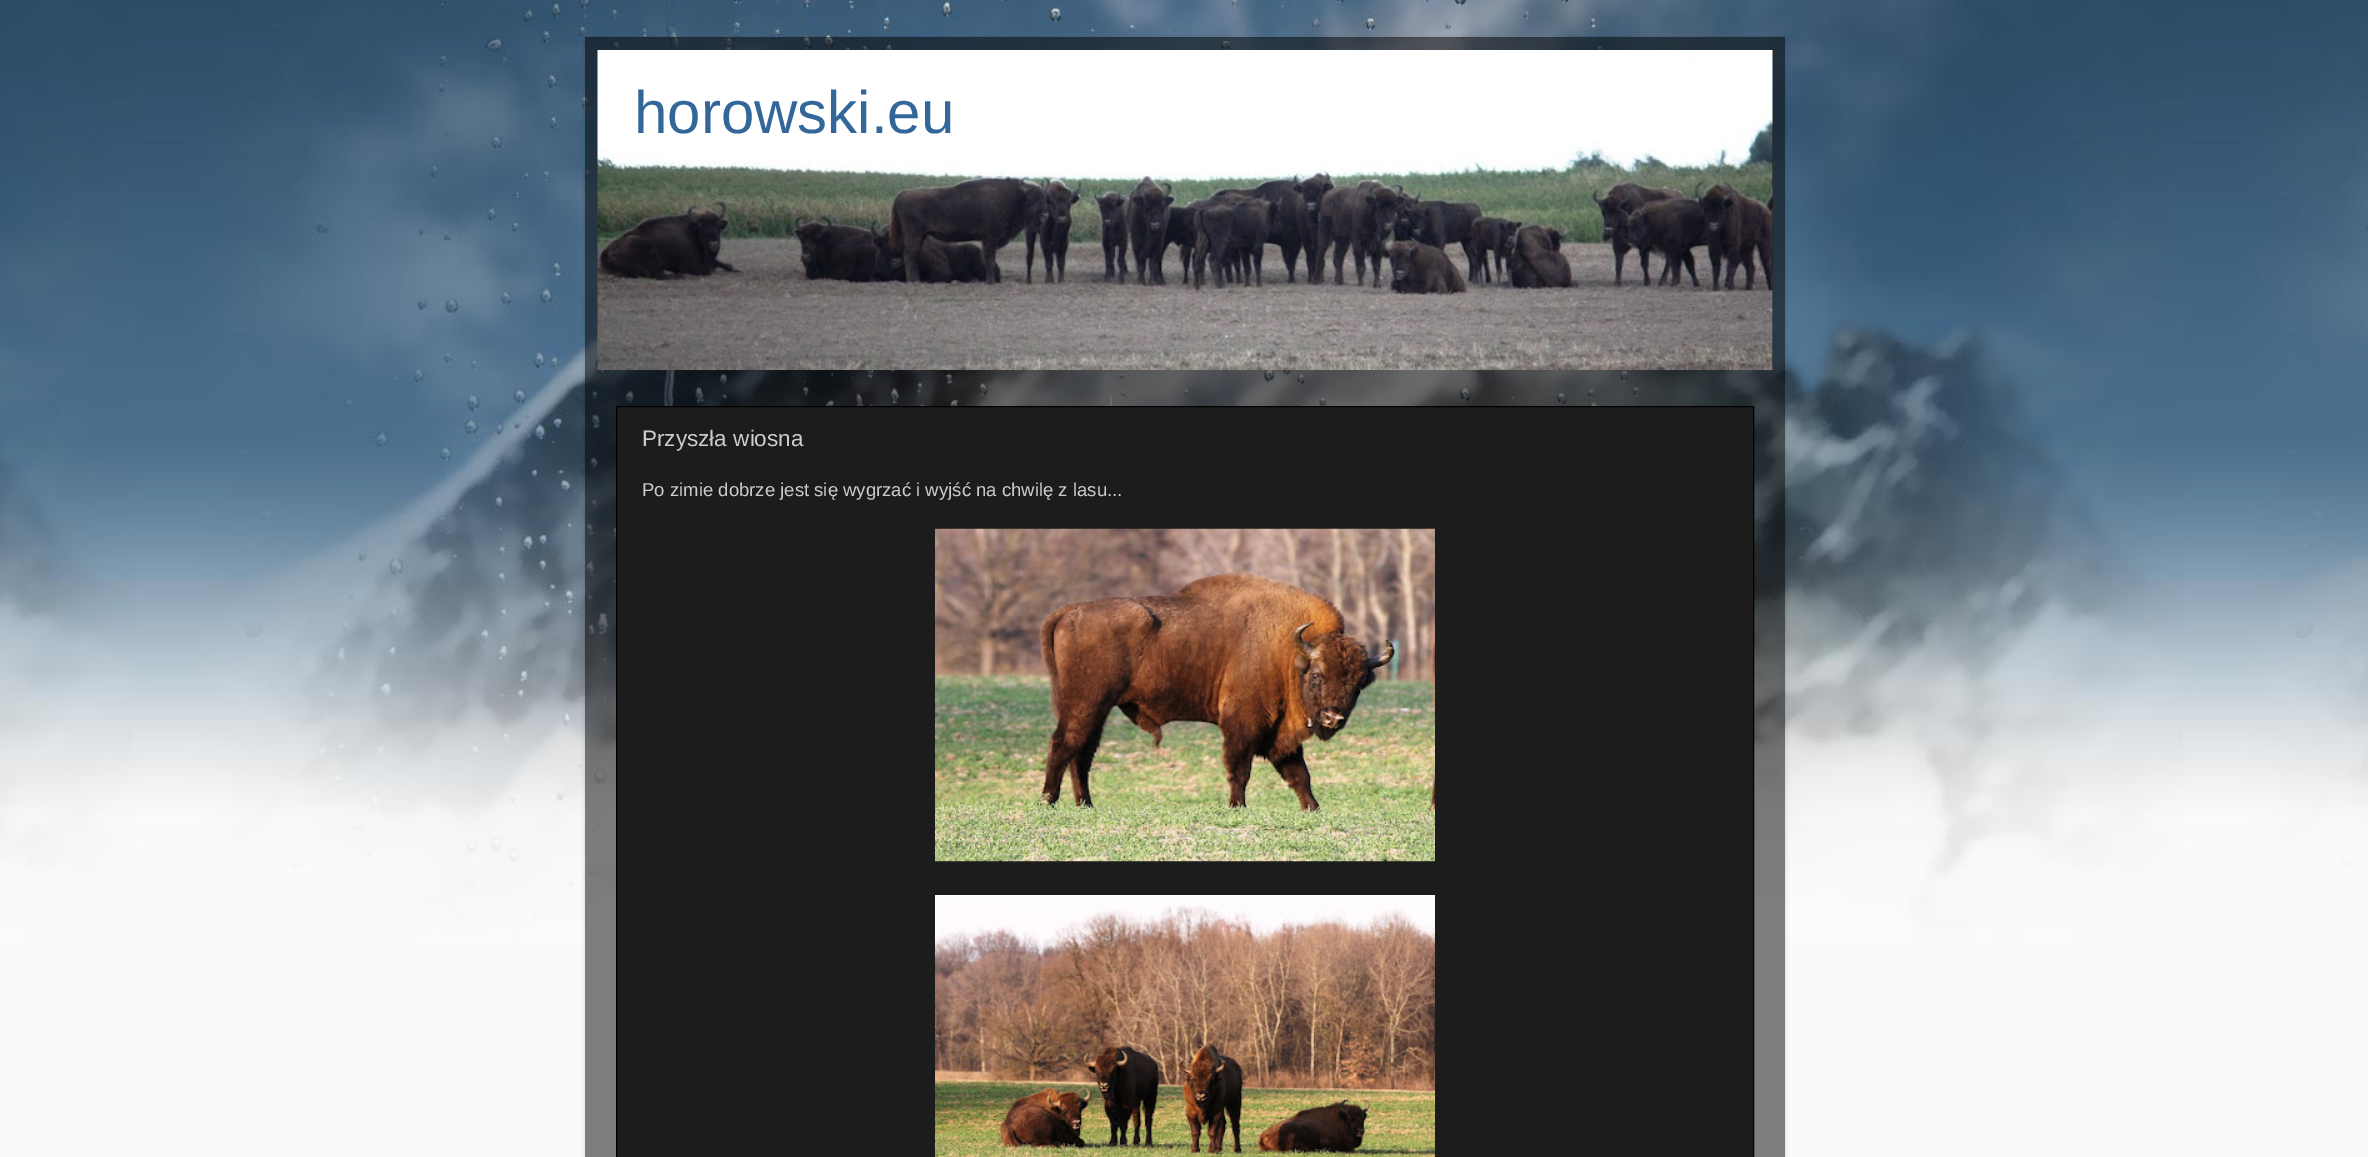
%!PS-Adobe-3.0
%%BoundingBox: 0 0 2368 1157
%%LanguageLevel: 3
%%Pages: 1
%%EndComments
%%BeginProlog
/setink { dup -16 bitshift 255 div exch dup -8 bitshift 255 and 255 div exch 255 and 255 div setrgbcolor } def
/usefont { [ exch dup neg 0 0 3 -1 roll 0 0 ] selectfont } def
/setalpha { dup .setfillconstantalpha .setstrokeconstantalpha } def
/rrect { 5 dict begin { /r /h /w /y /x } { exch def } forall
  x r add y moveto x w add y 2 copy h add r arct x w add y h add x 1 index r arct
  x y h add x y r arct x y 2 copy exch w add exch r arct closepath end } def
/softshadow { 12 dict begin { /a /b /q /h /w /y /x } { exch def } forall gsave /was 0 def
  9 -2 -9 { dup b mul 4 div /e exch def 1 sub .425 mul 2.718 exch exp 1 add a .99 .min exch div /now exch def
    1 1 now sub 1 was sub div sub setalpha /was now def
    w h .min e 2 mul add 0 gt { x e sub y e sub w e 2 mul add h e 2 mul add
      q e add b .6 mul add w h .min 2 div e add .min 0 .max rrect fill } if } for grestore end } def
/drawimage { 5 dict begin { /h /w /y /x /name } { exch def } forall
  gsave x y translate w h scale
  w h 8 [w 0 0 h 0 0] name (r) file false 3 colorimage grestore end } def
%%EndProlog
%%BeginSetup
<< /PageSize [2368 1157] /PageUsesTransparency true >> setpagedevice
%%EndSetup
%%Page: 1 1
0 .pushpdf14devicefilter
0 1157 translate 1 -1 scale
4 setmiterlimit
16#FAFAFA setink
0 0 2368 1157 rectfill
(img1.raw) 0 0 2368 940 drawimage
gsave
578 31 moveto 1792 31 lineto 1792 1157 lineto 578 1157 lineto closepath 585 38 moveto 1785 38 lineto 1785 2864 lineto 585 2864 lineto closepath eoclip newpath
16#000000 setink
585 38 1200 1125 0 2 0.15 softshadow
grestore
0.5 setalpha
16#000000 setink
585 37 1200 1120 rectfill
1 setalpha
16#1C1C1C setink
1772 50 1 320 rectfill
(img2.raw) 597 50 1176 320 drawimage
/LiberationSans-Regular 60 usefont
16#336699 setink
634 133 moveto (horowski.eu) show
16#1C1C1C setink
616.5 406.5 moveto 1753.5 406.5 lineto 1753.5 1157.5 lineto 616.5 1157.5 lineto closepath gsave fill grestore
16#000000 setink
stroke
/LiberationSans-Regular 22.5 usefont
16#CCCCCC setink
642 446 moveto (Przyszła wiosna) show
/LiberationSans-Regular 18.55 usefont
642 496 moveto (Po zimie dobrze jest się wygrzać i wyjść na chwilę z lasu...) show
(img3.raw) 935 528 500 334 drawimage
(img4.raw) 935 895 500 262 drawimage
.poppdf14devicefilter showpage
%%EOF
